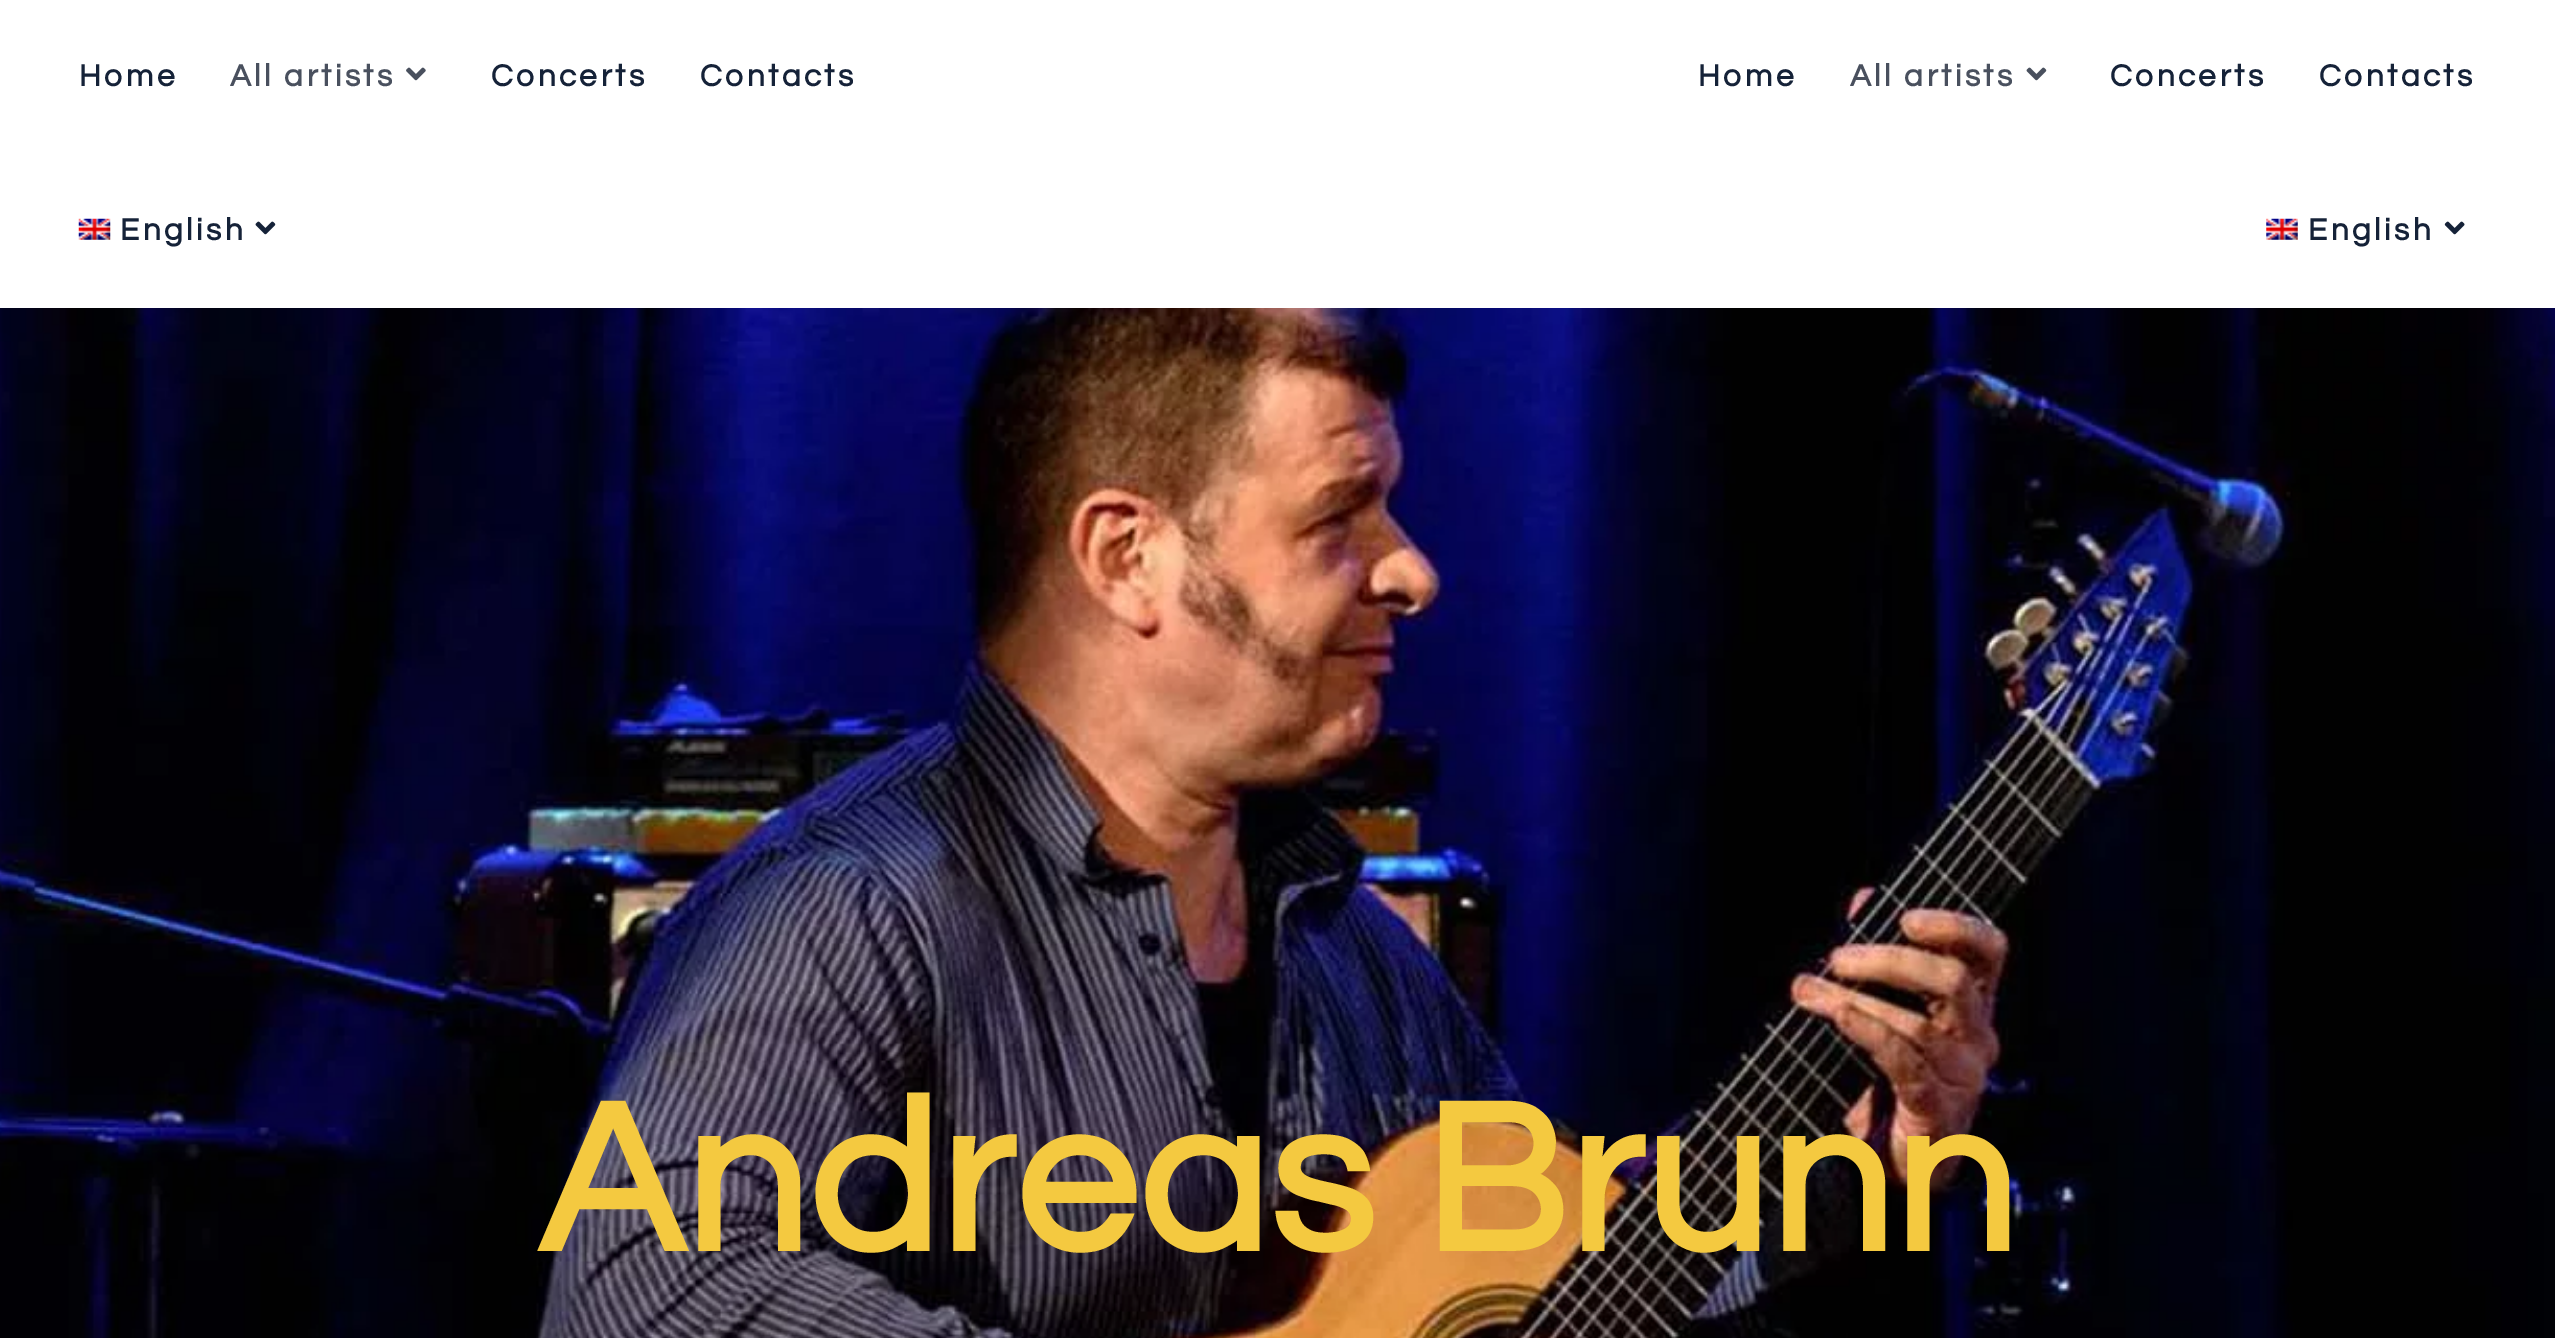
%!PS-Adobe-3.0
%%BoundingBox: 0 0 2555 1338
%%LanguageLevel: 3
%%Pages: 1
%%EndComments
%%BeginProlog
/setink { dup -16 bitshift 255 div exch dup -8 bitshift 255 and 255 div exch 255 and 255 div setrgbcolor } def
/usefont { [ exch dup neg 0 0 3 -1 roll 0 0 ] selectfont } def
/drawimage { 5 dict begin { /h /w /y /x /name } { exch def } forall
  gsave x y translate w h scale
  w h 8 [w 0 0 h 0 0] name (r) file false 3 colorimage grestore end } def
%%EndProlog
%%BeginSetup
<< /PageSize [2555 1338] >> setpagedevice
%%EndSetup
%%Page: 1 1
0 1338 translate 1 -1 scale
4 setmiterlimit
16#FFFFFF setink
0 0 2555 1338 rectfill
/Questrial-Bold 31.5 usefont
16#152238 setink
79 86 moveto 3.5 0 (Home) ashow
16#49505E setink
230 86 moveto 3.5 0 (All artists) ashow
(img1.raw) 406 67 20 14 drawimage
16#152238 setink
491 86 moveto 3.5 0 (Concerts) ashow
700 86 moveto 3.5 0 (Contacts) ashow
(img2.raw) 78 218 33 22 drawimage
120 240 moveto 3.5 0 (English) ashow
(img3.raw) 255 221 21 14 drawimage
1698 86 moveto 3.5 0 (Home) ashow
16#49505E setink
1850 86 moveto 3.5 0 (All artists) ashow
(img4.raw) 2026 67 21 14 drawimage
16#152238 setink
2110 86 moveto 3.5 0 (Concerts) ashow
2319 86 moveto 3.5 0 (Contacts) ashow
(img5.raw) 2266 218 32 22 drawimage
2308 240 moveto 3.5 0 (English) ashow
(img6.raw) 2444 221 21 14 drawimage
(img7.raw) 0 308 2555 1030 drawimage
/Questrial-Bold 218.5 usefont
16#F4C940 setink
538 1251 moveto 0.9 0 (Andreas Brunn) ashow
showpage
%%EOF
